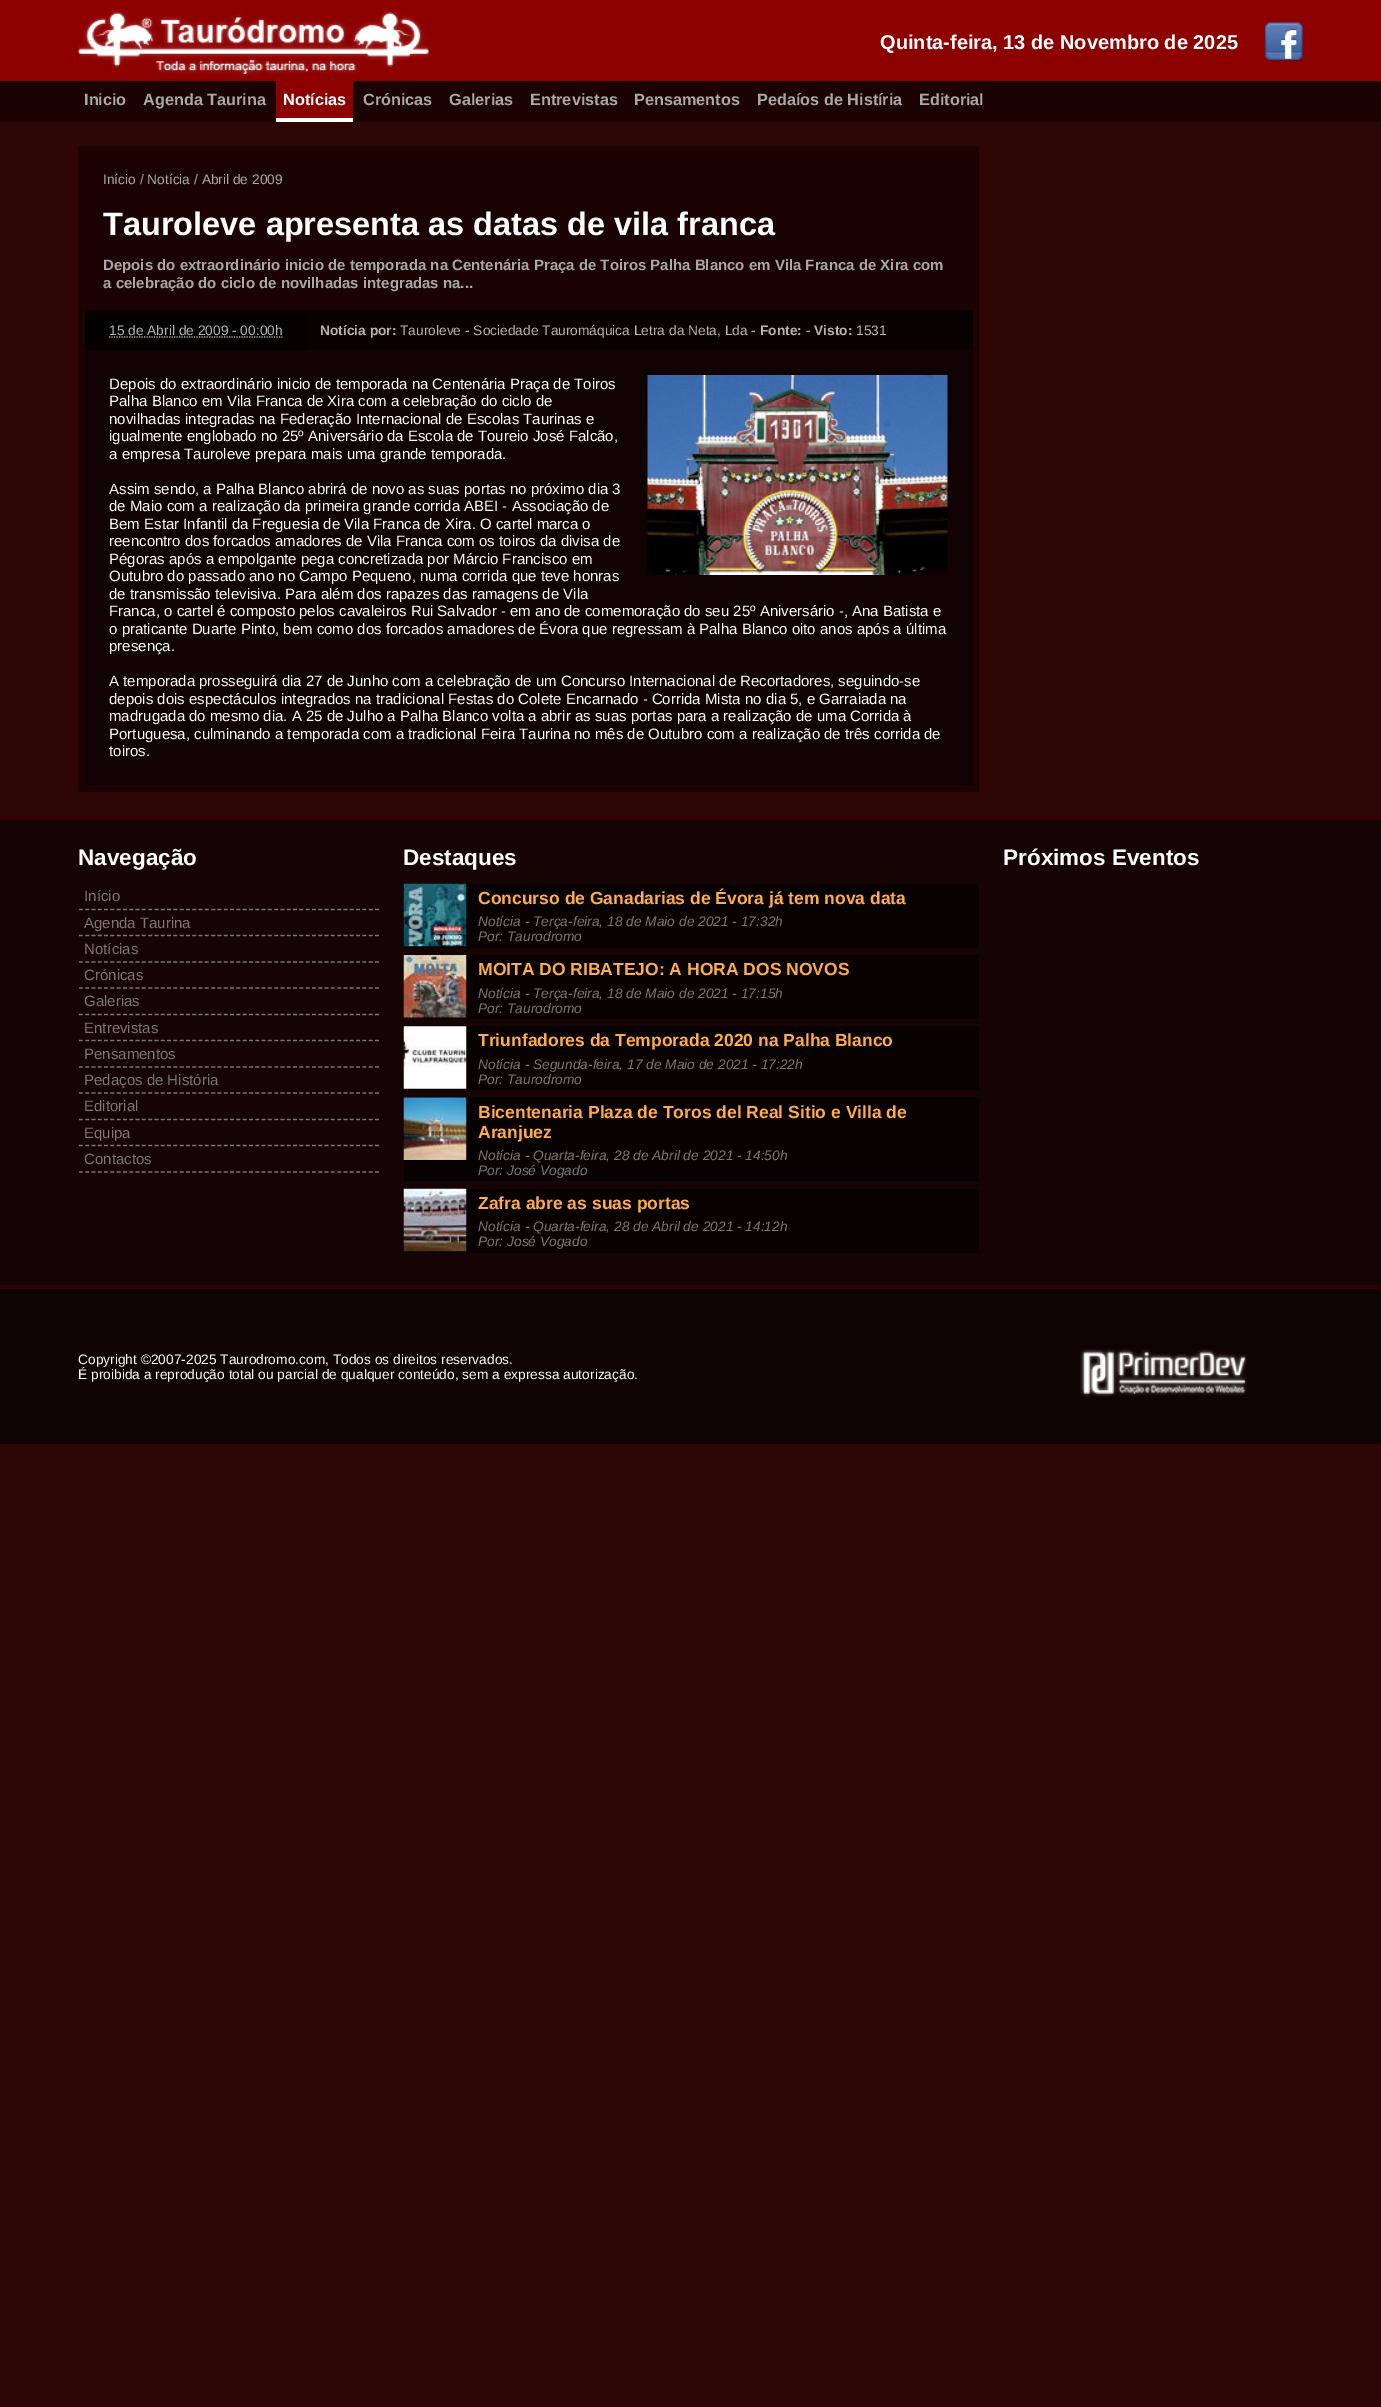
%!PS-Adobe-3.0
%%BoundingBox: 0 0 1381 2407
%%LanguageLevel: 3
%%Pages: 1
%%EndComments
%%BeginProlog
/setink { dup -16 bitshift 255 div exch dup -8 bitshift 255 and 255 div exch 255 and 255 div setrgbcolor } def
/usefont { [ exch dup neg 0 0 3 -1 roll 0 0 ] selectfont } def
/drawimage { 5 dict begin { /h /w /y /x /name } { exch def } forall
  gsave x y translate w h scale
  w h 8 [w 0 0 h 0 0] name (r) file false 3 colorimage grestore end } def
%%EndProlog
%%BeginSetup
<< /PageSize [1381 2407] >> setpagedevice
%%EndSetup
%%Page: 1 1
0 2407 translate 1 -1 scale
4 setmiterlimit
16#2D0505 setink
0 0 1381 2407 rectfill
16#8D0000 setink
0 0 1381 81 rectfill
(img1.raw) 78 10 351 65 drawimage
/LiberationSans-Bold 20 usefont
16#FFFFFF setink
880 49 moveto (Quinta-feira, 13 de Novembro de 2025) show
(img2.raw) 1264 22 39 40 drawimage
16#1B0303 setink
0 81 1381 41 rectfill
/LiberationSans-Bold 16.25 usefont
16#A8A8A8 setink
84 105 moveto (Inicio) show
143 105 moveto (Agenda Taurina) show
16#8D0000 setink
276 81 77 37 rectfill
16#FFFFFF setink
276 118 77 4 rectfill
283 105 moveto (Notícias) show
16#A8A8A8 setink
[
    [(Crónicas) 363 105]
    [(Galerias) 449 105]
    [(Entrevistas) 530 105]
    [(Pensamentos) 634 105]
    [(Pedaíos de Histíria) 757 105]
    [(Editorial) 919 105]
] { aload pop moveto show } forall
16#1B0303 setink
78 146 901 646 rectfill
/LiberationSans-Regular 13.75 usefont
16#A8A8A8 setink
103 184 moveto (Início / Notícia / Abril de 2009) show
/LiberationSans-Bold 32.5 usefont
16#FFFFFF setink
103 235 moveto (Tauroleve apresenta as datas de vila franca) show
/LiberationSans-Bold 15 usefont
16#A8A8A8 setink
103 270 moveto (Depois do extraordinário inicio de temporada na Centenária Praça de Toiros Palha Blanco em Vila Franca de Xira com) show
103 288 moveto (a celebração do ciclo de novilhadas integradas na...) show
16#050101 setink
85 310 223 40 rectfill
/LiberationSans-Regular 13.75 usefont
16#B5B4B2 setink
109 335 moveto (15 de Abril de 2009 - 00:00h) show
1.2 setlinewidth
[1.25 1.25] 0 setdash
109 337 moveto 282.5 337 lineto stroke
16#080101 setink
308 310 665 40 rectfill
/LiberationSans-Bold 13.75 usefont
16#B5B4B2 setink
320 335 moveto (Notícia por:) show
/LiberationSans-Regular 13.75 usefont
400 335 moveto (Tauroleve - Sociedade Tauromáquica Letra da Neta, Lda -) show
/LiberationSans-Bold 13.75 usefont
760 335 moveto (Fonte:) show
/LiberationSans-Regular 13.75 usefont
806 335 moveto (-) show
/LiberationSans-Bold 13.75 usefont
814 335 moveto (Visto:) show
/LiberationSans-Regular 13.75 usefont
856 335 moveto (1531) show
16#100202 setink
85 350 888 435 rectfill
/LiberationSans-Regular 15 usefont
16#FFFFFF setink
109 389 moveto (Depois do extraordinário inicio de temporada na Centenária Praça de Toiros) show
(img3.raw) 647 375 301 200 drawimage
[
    [(Palha Blanco em Vila Franca de Xira com a celebração do ciclo de) 109 406]
    [(novilhadas integradas na Federação Internacional de Escolas Taurinas e) 109 424]
    [(igualmente englobado no 25º Aniversário da Escola de Toureio José Falcão,) 109 441]
    [(a empresa Tauroleve prepara mais uma grande temporada.) 109 459]
    [(Assim sendo, a Palha Blanco abrirá de novo as suas portas no próximo dia 3) 109 494]
    [(de Maio com a realização da primeira grande corrida ABEI - Associação de) 109 511]
    [(Bem Estar Infantil da Freguesia de Vila Franca de Xira. O cartel marca o) 109 529]
    [(reencontro dos forcados amadores de Vila Franca com os toiros da divisa de) 109 546]
    [(Pégoras após a empolgante pega concretizada por Márcio Francisco em) 109 564]
    [(Outubro do passado ano no Campo Pequeno, numa corrida que teve honras) 109 581]
    [(de transmissão televisiva. Para além dos rapazes das ramagens de Vila) 109 599]
    [(Franca, o cartel é composto pelos cavaleiros Rui Salvador - em ano de comemoração do seu 25º Aniversário -, Ana Batista e) 109 616]
    [(o praticante Duarte Pinto, bem como dos forcados amadores de Évora que regressam à Palha Blanco oito anos após a última) 109 634]
    [(presença.) 109 651]
    [(A temporada prosseguirá dia 27 de Junho com a celebração de um Concurso Internacional de Recortadores, seguindo-se) 109 686]
    [(depois dois espectáculos integrados na tradicional Festas do Colete Encarnado - Corrida Mista no dia 5, e Garraiada na) 109 704]
    [(madrugada do mesmo dia. A 25 de Julho a Palha Blanco volta a abrir as suas portas para a realização de uma Corrida à) 109 721]
    [(Portuguesa, culminando a temporada com a tradicional Feira Taurina no mês de Outubro com a realização de três corrida de) 109 739]
    [(toiros.) 109 756]
] { aload pop moveto show } forall
16#160303 setink
0 820 1381 465 rectfill
16#310000 setink
0 816 1381 4 rectfill
/LiberationSans-Bold 22.5 usefont
16#FFFFFF setink
78 865 moveto (Navegação) show
16#787775 setink
[3.75 2.55] 0 setdash
79 909.5 moveto 379 909.5 lineto stroke
/LiberationSans-Regular 15 usefont
84 901 moveto (Início) show
79 935.5 moveto 379 935.5 lineto stroke
84 928 moveto (Agenda Taurina) show
79 962 moveto 379 962 lineto stroke
84 954 moveto (Notícias) show
79 988 moveto 379 988 lineto stroke
84 980 moveto (Crónicas) show
79 1014.5 moveto 379 1014.5 lineto stroke
84 1006 moveto (Galerias) show
79 1040.5 moveto 379 1040.5 lineto stroke
84 1033 moveto (Entrevistas) show
79 1067 moveto 379 1067 lineto stroke
84 1059 moveto (Pensamentos) show
79 1093 moveto 379 1093 lineto stroke
84 1085 moveto (Pedaços de História) show
79 1119.5 moveto 379 1119.5 lineto stroke
84 1111 moveto (Editorial) show
79 1145.5 moveto 379 1145.5 lineto stroke
84 1138 moveto (Equipa) show
79 1172 moveto 379 1172 lineto stroke
84 1164 moveto (Contactos) show
/LiberationSans-Bold 22.5 usefont
16#FFFFFF setink
403 865 moveto (Destaques) show
16#070101 setink
404 884 575 64 rectfill
(img4.raw) 403 883 64 64 drawimage
/LiberationSans-Bold 17.5 usefont
16#FFAC4E setink
478 904 moveto (Concurso de Ganadarias de Évora já tem nova data) show
/LiberationSans-Italic 13.75 usefont
16#787775 setink
478 926 moveto (Notícia - Terça-feira, 18 de Maio de 2021 - 17:32h) show
478 941 moveto (Por: Taurodromo) show
16#070101 setink
404 955 575 64 rectfill
(img5.raw) 403 955 64 63 drawimage
/LiberationSans-Bold 17.5 usefont
16#FFAC4E setink
478 975 moveto (MOITA DO RIBATEJO: A HORA DOS NOVOS) show
/LiberationSans-Italic 13.75 usefont
16#787775 setink
478 998 moveto (Notícia - Terça-feira, 18 de Maio de 2021 - 17:15h) show
478 1013 moveto (Por: Taurodromo) show
16#070101 setink
404 1026 575 64 rectfill
(img6.raw) 403 1026 64 63 drawimage
/LiberationSans-Bold 17.5 usefont
16#FFAC4E setink
478 1046 moveto (Triunfadores da Temporada 2020 na Palha Blanco) show
/LiberationSans-Italic 13.75 usefont
16#787775 setink
478 1069 moveto (Notícia - Segunda-feira, 17 de Maio de 2021 - 17:22h) show
478 1084 moveto (Por: Taurodromo) show
16#070101 setink
404 1097 575 84 rectfill
(img7.raw) 403 1097 64 63 drawimage
/LiberationSans-Bold 17.5 usefont
16#FFAC4E setink
478 1118 moveto (Bicentenaria Plaza de Toros del Real Sitio e Villa de) show
478 1138 moveto (Aranjuez) show
/LiberationSans-Italic 13.75 usefont
16#787775 setink
478 1160 moveto (Notícia - Quarta-feira, 28 de Abril de 2021 - 14:50h) show
478 1175 moveto (Por: José Vogado) show
16#070101 setink
404 1189 575 64 rectfill
(img8.raw) 403 1188 64 64 drawimage
/LiberationSans-Bold 17.5 usefont
16#FFAC4E setink
478 1209 moveto (Zafra abre as suas portas) show
/LiberationSans-Italic 13.75 usefont
16#787775 setink
478 1231 moveto (Notícia - Quarta-feira, 28 de Abril de 2021 - 14:12h) show
478 1246 moveto (Por: José Vogado) show
/LiberationSans-Bold 22.5 usefont
16#FFFFFF setink
1003 865 moveto (Próximos Eventos) show
16#0E0202 setink
0 1289 1381 155 rectfill
16#310000 setink
0 1285 1381 4 rectfill
/LiberationSans-Regular 13.75 usefont
16#FFFFFF setink
78 1364 moveto (Copyright ©2007-2025 Taurodromo.com, Todos os direitos reservados.) show
78 1379 moveto (É proibida a reprodução total ou parcial de qualquer conteúdo, sem a expressa autorização.) show
(img9.raw) 1080 1349 168 48 drawimage
showpage
%%EOF
